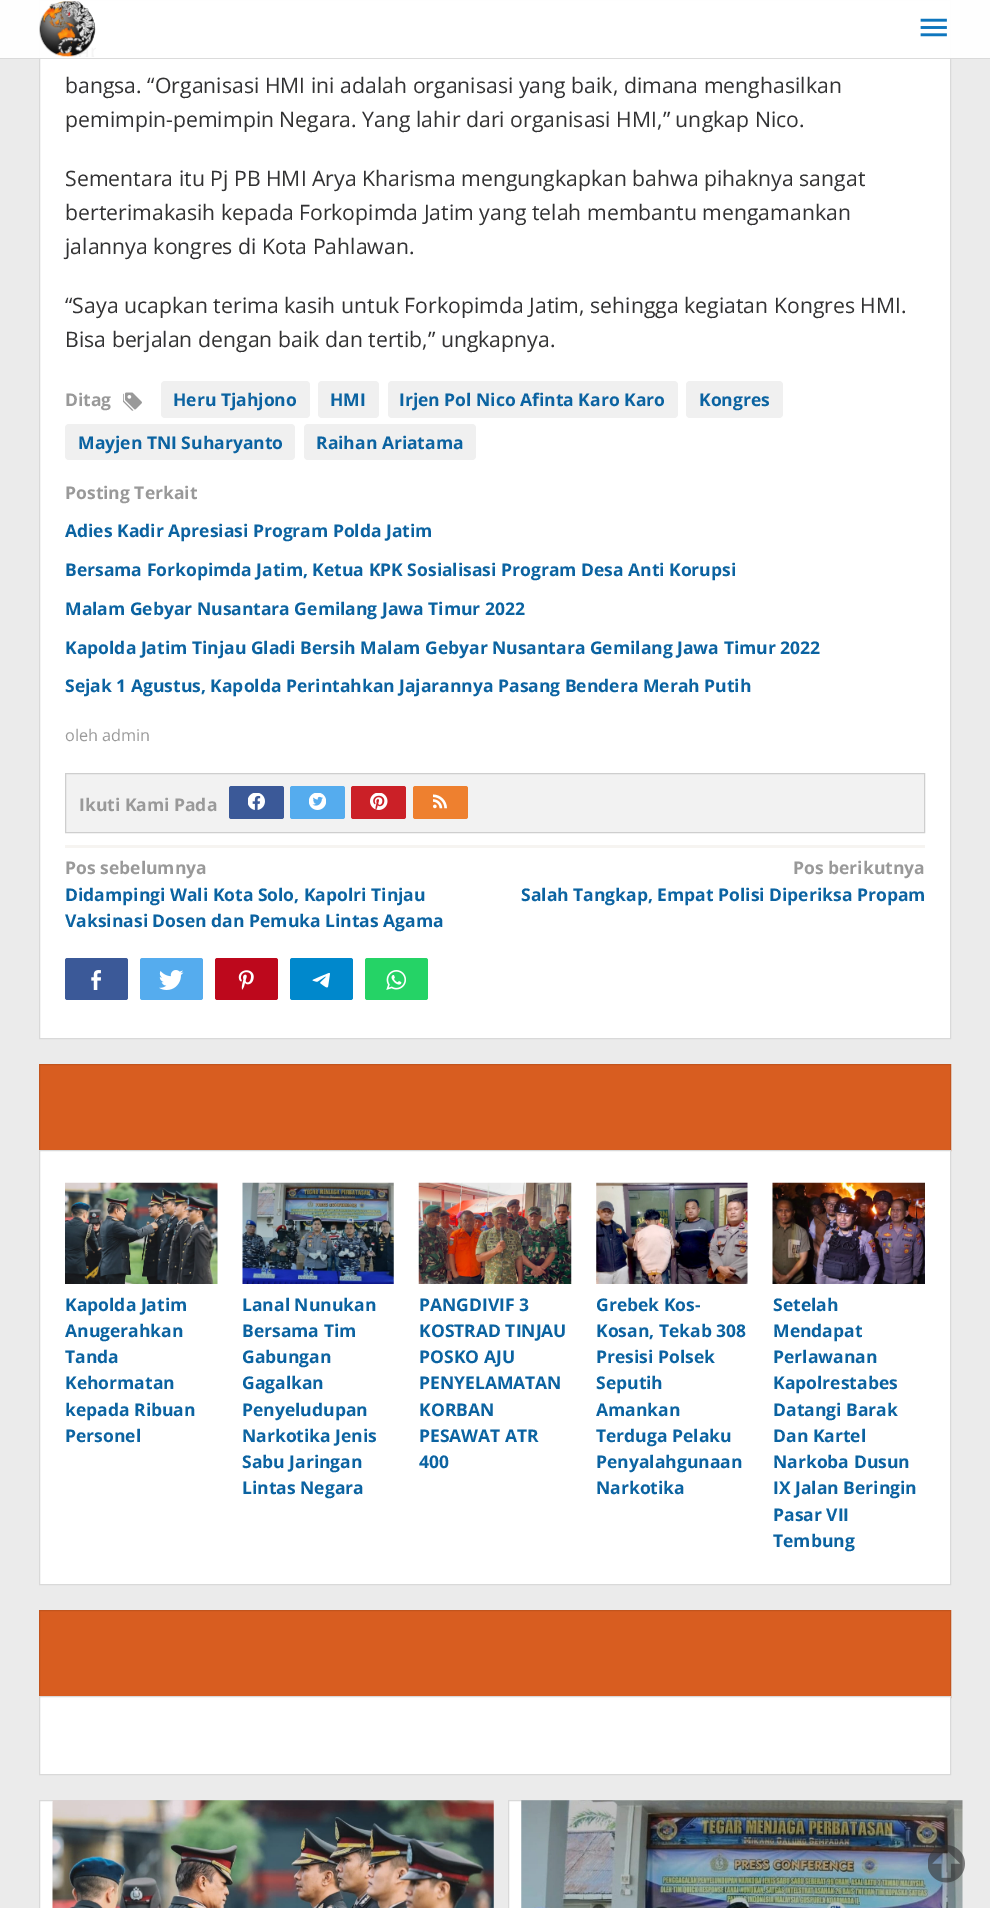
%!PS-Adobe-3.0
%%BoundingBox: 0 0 990 1908
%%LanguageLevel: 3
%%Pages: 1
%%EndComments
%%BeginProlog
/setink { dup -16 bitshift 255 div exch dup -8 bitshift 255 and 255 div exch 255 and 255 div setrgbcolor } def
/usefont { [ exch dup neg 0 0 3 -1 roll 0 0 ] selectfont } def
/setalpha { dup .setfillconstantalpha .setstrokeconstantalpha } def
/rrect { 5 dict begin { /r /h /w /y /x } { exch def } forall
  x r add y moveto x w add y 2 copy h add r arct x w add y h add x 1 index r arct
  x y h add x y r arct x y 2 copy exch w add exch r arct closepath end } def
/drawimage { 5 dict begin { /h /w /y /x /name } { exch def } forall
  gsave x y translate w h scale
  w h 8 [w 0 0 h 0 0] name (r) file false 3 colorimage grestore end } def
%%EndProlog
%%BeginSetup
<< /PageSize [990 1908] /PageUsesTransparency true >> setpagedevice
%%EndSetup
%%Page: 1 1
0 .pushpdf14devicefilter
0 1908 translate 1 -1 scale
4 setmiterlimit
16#EBEBEB setink
0 0 990 1908 rectfill
16#FFFFFF setink
39.5 -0.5 moveto 950.5 -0.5 lineto 950.5 1038.5 lineto 39.5 1038.5 lineto closepath gsave fill grestore
16#D9D9D9 setink
stroke
0.95 setalpha
16#FFFFFF setink
0 0 990 59 rectfill
0.14 setalpha
16#000000 setink
0 58 990 1 rectfill
1 setalpha
(img1.raw) 39 1 57 56 drawimage
(img2.raw) 920 18 27 19 drawimage
/OpenSans-Regular 21.25 usefont
16#323233 setink
[
    [(bangsa. “Organisasi HMI ini adalah organisasi yang baik, dimana menghasilkan) 65 93]
    [(pemimpin-pemimpin Negara. Yang lahir dari organisasi HMI,” ungkap Nico.) 65 127]
    [(Sementara itu Pj PB HMI Arya Kharisma mengungkapkan bahwa pihaknya sangat) 65 186]
    [(berterimakasih kepada Forkopimda Jatim yang telah membantu mengamankan) 65 220]
    [(jalannya kongres di Kota Pahlawan.) 65 254]
    [(“Saya ucapkan terima kasih untuk Forkopimda Jatim, sehingga kegiatan Kongres HMI.) 65 313]
    [(Bisa berjalan dengan baik dan tertib,” ungkapnya.) 65 347]
] { aload pop moveto show } forall
/OpenSans-Bold 17.5 usefont
16#999999 setink
65 406 moveto (Ditag) show
(img3.raw) 123 392 19 19 drawimage
16#F0F0F0 setink
161 381 149 37 4 rrect fill
16#0B63A1 setink
173 406 moveto (Heru Tjahjono) show
16#F0F0F0 setink
318 381 61 37 4 rrect fill
16#0B63A1 setink
330 406 moveto (HMI) show
16#F0F0F0 setink
388 381 290 37 4 rrect fill
16#0B63A1 setink
399 406 moveto (Irjen Pol Nico Afinta Karo Karo) show
16#F0F0F0 setink
686 381 97 37 4 rrect fill
16#0B63A1 setink
699 406 moveto (Kongres) show
16#F0F0F0 setink
65 424 230 36 4 rrect fill
16#0B63A1 setink
78 449 moveto (Mayjen TNI Suharyanto) show
16#F0F0F0 setink
304 424 172 36 4 rrect fill
16#0B63A1 setink
316 449 moveto (Raihan Ariatama) show
16#999999 setink
65 499 moveto (Posting Terkait) show
16#0B63A1 setink
[
    [(Adies Kadir Apresiasi Program Polda Jatim) 65 537]
    [(Bersama Forkopimda Jatim, Ketua KPK Sosialisasi Program Desa Anti Korupsi) 65 576]
    [(Malam Gebyar Nusantara Gemilang Jawa Timur 2022) 65 615]
    [(Kapolda Jatim Tinjau Gladi Bersih Malam Gebyar Nusantara Gemilang Jawa Timur 2022) 65 654]
    [(Sejak 1 Agustus, Kapolda Perintahkan Jajarannya Pasang Bendera Merah Putih) 65 692]
] { aload pop moveto show } forall
/OpenSans-Regular 16.25 usefont
16#999999 setink
65 741 moveto (oleh admin) show
16#F2F2F2 setink
65.5 773.5 moveto 924.5 773.5 lineto 924.5 832.5 lineto 65.5 832.5 lineto closepath gsave fill grestore
16#CECECE setink
stroke
/OpenSans-Bold 17.5 usefont
16#999999 setink
79 811 moveto (Ikuti Kami Pada) show
16#3B5998 setink
229 786 55 33 2.5 rrect fill
(img4.raw) 248 793 17 17 drawimage
16#55ACEE setink
290 786 55 33 2.5 rrect fill
(img5.raw) 309 793 17 17 drawimage
16#CB2027 setink
351 786 55 33 2.5 rrect fill
(img6.raw) 370 793 18 17 drawimage
16#EE802F setink
413 786 55 33 2.5 rrect fill
(img7.raw) 433 794 14 15 drawimage
16#F6F4F1 setink
65 845 860 3 rectfill
16#999999 setink
65 874 moveto (Pos sebelumnya) show
16#0B63A1 setink
65 901 moveto (Didampingi Wali Kota Solo, Kapolri Tinjau) show
65 927 moveto (Vaksinasi Dosen dan Pemuka Lintas Agama) show
16#999999 setink
793 874 moveto (Pos berikutnya) show
16#0B63A1 setink
521 901 moveto (Salah Tangkap, Empat Polisi Diperiksa Propam) show
16#3B5998 setink
65 958 63 42 2.5 rrect fill
(img8.raw) 91 970 10 20 drawimage
16#55ACEE setink
140 958 63 42 2.5 rrect fill
(img9.raw) 159 970 25 20 drawimage
16#BD081C setink
215 958 63 42 2.5 rrect fill
(img10.raw) 238 970 16 20 drawimage
16#0088CC setink
290 958 63 42 2.5 rrect fill
(img11.raw) 312 972 18 16 drawimage
16#25D366 setink
365 958 63 42 2.5 rrect fill
(img12.raw) 386 970 20 20 drawimage
16#D85D20 setink
39.5 1064.5 moveto 950.5 1064.5 lineto 950.5 1150.5 lineto 39.5 1150.5 lineto closepath gsave fill grestore
16#C2541D setink
stroke
16#FFFFFF setink
39.5 1150.5 moveto 950.5 1150.5 lineto 950.5 1584.5 lineto 39.5 1584.5 lineto closepath gsave fill grestore
16#D9D9D9 setink
stroke
(img13.raw) 65 1182 153 102 drawimage
16#0B63A1 setink
[
    [(Kapolda Jatim) 65 1311]
    [(Anugerahkan) 65 1337]
    [(Tanda) 65 1363]
    [(Kehormatan) 65 1389]
    [(kepada Ribuan) 65 1416]
    [(Personel) 65 1442]
] { aload pop moveto show } forall
(img14.raw) 242 1182 152 102 drawimage
[
    [(Lanal Nunukan) 242 1311]
    [(Bersama Tim) 242 1337]
    [(Gabungan) 242 1363]
    [(Gagalkan) 242 1389]
    [(Penyeludupan) 242 1416]
    [(Narkotika Jenis) 242 1442]
    [(Sabu Jaringan) 242 1468]
    [(Lintas Negara) 242 1494]
] { aload pop moveto show } forall
(img15.raw) 418 1182 154 102 drawimage
[
    [(PANGDIVIF 3) 419 1311]
    [(KOSTRAD TINJAU) 419 1337]
    [(POSKO AJU) 419 1363]
    [(PENYELAMATAN) 419 1389]
    [(KORBAN) 419 1416]
    [(PESAWAT ATR) 419 1442]
    [(400) 419 1468]
] { aload pop moveto show } forall
(img16.raw) 596 1182 152 102 drawimage
[
    [(Grebek Kos-) 596 1311]
    [(Kosan, Tekab 308) 596 1337]
    [(Presisi Polsek) 596 1363]
    [(Seputih) 596 1389]
    [(Amankan) 596 1416]
    [(Terduga Pelaku) 596 1442]
    [(Penyalahgunaan) 596 1468]
    [(Narkotika) 596 1494]
] { aload pop moveto show } forall
(img17.raw) 772 1182 153 102 drawimage
[
    [(Setelah) 773 1311]
    [(Mendapat) 773 1337]
    [(Perlawanan) 773 1363]
    [(Kapolrestabes) 773 1389]
    [(Datangi Barak) 773 1416]
    [(Dan Kartel) 773 1442]
    [(Narkoba Dusun) 773 1468]
    [(IX Jalan Beringin) 773 1494]
    [(Pasar VII) 773 1521]
    [(Tembung) 773 1547]
] { aload pop moveto show } forall
16#D85D20 setink
40 1611 910 85 rectfill
16#C2541D setink
39.5 1610.5 911 87 rectstroke
16#FFFFFF setink
39.5 1696.5 moveto 950.5 1696.5 lineto 950.5 1774.5 lineto 39.5 1774.5 lineto closepath gsave fill grestore
16#D9D9D9 setink
stroke
16#FFFFFF setink
40 1801 13 107 rectfill
16#D9D9D9 setink
39.5 1800.5 443 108 rectstroke
(img18.raw) 52 1800 442 108 drawimage
16#FFFFFF setink
509 1801 13 107 rectfill
16#D9D9D9 setink
508.5 1800.5 442 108 rectstroke
(img19.raw) 521 1800 442 108 drawimage
(img20.raw) 928 1845 37 38 drawimage
.poppdf14devicefilter showpage
%%EOF
